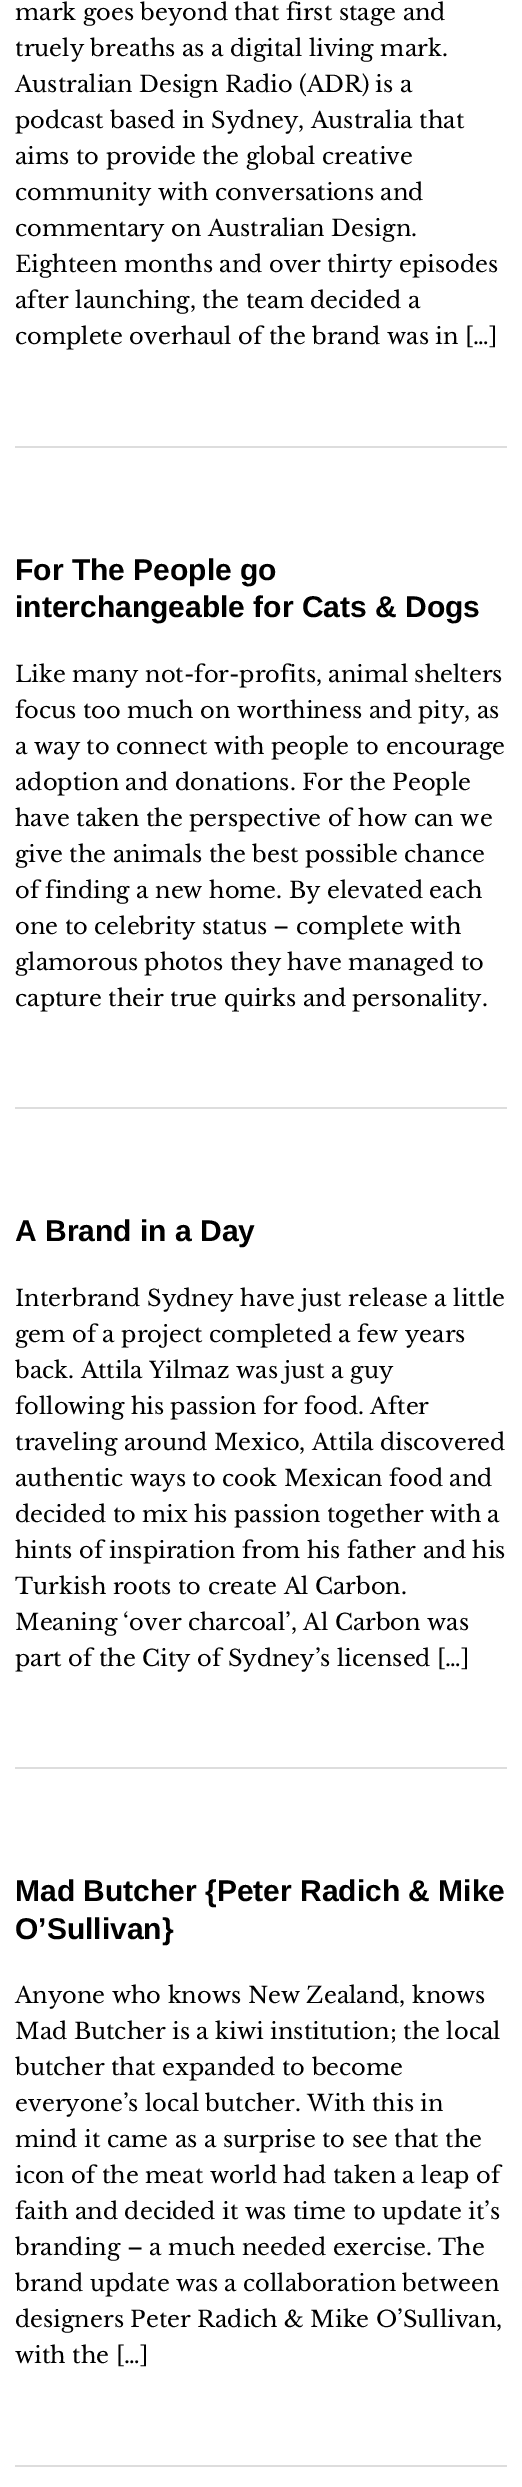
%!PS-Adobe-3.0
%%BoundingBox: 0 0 522 2487
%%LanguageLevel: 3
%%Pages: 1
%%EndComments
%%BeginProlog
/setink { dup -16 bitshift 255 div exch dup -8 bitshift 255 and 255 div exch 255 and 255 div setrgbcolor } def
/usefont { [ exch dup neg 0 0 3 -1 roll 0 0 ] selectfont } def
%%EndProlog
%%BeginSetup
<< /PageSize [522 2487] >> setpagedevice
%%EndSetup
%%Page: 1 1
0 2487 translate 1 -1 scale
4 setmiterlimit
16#FFFFFF setink
0 0 522 2487 rectfill
16#DDDDDD setink
15 446 492 2 rectfill
/LibreBaskerville-Regular 22.5 usefont
16#000000 setink
[
    [(mark goes beyond that first stage and) 15 20]
    [(truely breaths as a digital living mark.) 15 56]
    [(Australian Design Radio \(ADR\) is a) 15 92]
    [(podcast based in Sydney, Australia that) 15 128]
    [(aims to provide the global creative) 15 164]
    [(community with conversations and) 15 200]
    [(commentary on Australian Design.) 15 236]
    [(Eighteen months and over thirty episodes) 15 272]
    [(after launching, the team decided a) 15 308]
    [(complete overhaul of the brand was in […]) 15 344]
] { aload pop moveto show } forall
16#DDDDDD setink
15 1107 492 2 rectfill
/LiberationSans-Bold 30 usefont
16#000000 setink
15 580 moveto (For The People go) show
15 617 moveto (interchangeable for Cats & Dogs) show
/LibreBaskerville-Regular 22.5 usefont
[
    [(Like many not-for-profits, animal shelters) 15 682]
    [(focus too much on worthiness and pity, as) 15 718]
    [(a way to connect with people to encourage) 15 754]
    [(adoption and donations. For the People) 15 790]
    [(have taken the perspective of how can we) 15 826]
    [(give the animals the best possible chance) 15 862]
    [(of finding a new home. By elevated each) 15 898]
    [(one to celebrity status – complete with) 15 934]
    [(glamorous photos they have managed to) 15 970]
    [(capture their true quirks and personality.) 15 1006]
] { aload pop moveto show } forall
16#DDDDDD setink
15 1767 492 2 rectfill
/LiberationSans-Bold 30 usefont
16#000000 setink
15 1241 moveto (A Brand in a Day) show
/LibreBaskerville-Regular 22.5 usefont
[
    [(Interbrand Sydney have just release a little) 15 1306]
    [(gem of a project completed a few years) 15 1342]
    [(back. Attila Yilmaz was just a guy) 15 1378]
    [(following his passion for food. After) 15 1414]
    [(traveling around Mexico, Attila discovered) 15 1450]
    [(authentic ways to cook Mexican food and) 15 1486]
    [(decided to mix his passion together with a) 15 1522]
    [(hints of inspiration from his father and his) 15 1558]
    [(Turkish roots to create Al Carbon.) 15 1594]
    [(Meaning ‘over charcoal’, Al Carbon was) 15 1630]
    [(part of the City of Sydney’s licensed […]) 15 1666]
] { aload pop moveto show } forall
16#DDDDDD setink
15 2465 492 2 rectfill
/LiberationSans-Bold 30 usefont
16#000000 setink
15 1901 moveto (Mad Butcher {Peter Radich & Mike) show
15 1939 moveto (O’Sullivan}) show
/LibreBaskerville-Regular 22.5 usefont
[
    [(Anyone who knows New Zealand, knows) 15 2003]
    [(Mad Butcher is a kiwi institution; the local) 15 2039]
    [(butcher that expanded to become) 15 2075]
    [(everyone’s local butcher. With this in) 15 2111]
    [(mind it came as a surprise to see that the) 15 2147]
    [(icon of the meat world had taken a leap of) 15 2183]
    [(faith and decided it was time to update it’s) 15 2219]
    [(branding – a much needed exercise. The) 15 2255]
    [(brand update was a collaboration between) 15 2291]
    [(designers Peter Radich & Mike O’Sullivan,) 15 2327]
    [(with the […]) 15 2363]
] { aload pop moveto show } forall
showpage
%%EOF
